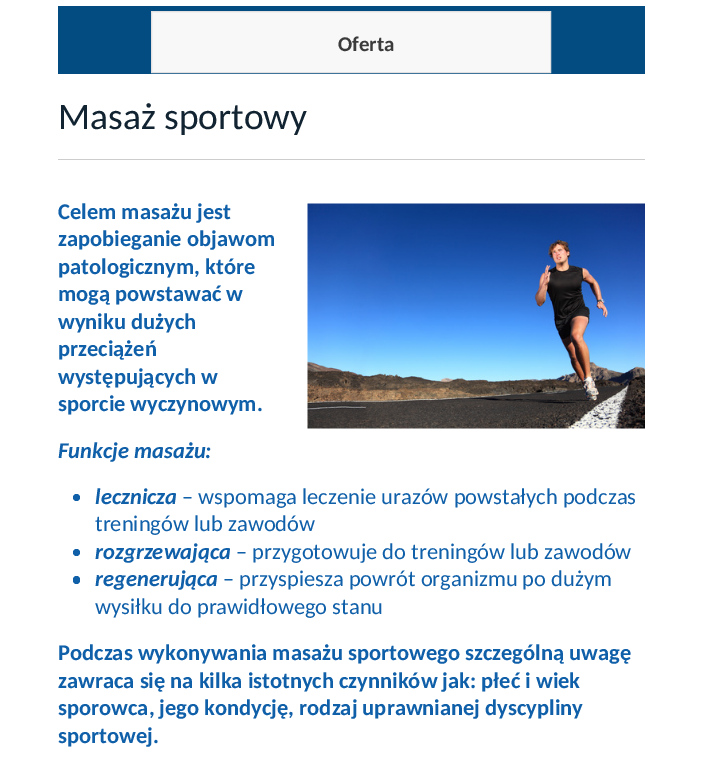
%!PS-Adobe-3.0
%%BoundingBox: 0 0 702 759
%%LanguageLevel: 3
%%Pages: 1
%%EndComments
%%BeginProlog
/setink { dup -16 bitshift 255 div exch dup -8 bitshift 255 and 255 div exch 255 and 255 div setrgbcolor } def
/usefont { [ exch dup neg 0 0 3 -1 roll 0 0 ] selectfont } def
/disc { newpath 0 360 arc closepath } def
/rrect { 5 dict begin { /r /h /w /y /x } { exch def } forall
  x r add y moveto x w add y 2 copy h add r arct x w add y h add x 1 index r arct
  x y h add x y r arct x y 2 copy exch w add exch r arct closepath end } def
/drawimage { 5 dict begin { /h /w /y /x /name } { exch def } forall
  gsave x y translate w h scale
  w h 8 [w 0 0 h 0 0] name (r) file false 3 colorimage grestore end } def
%%EndProlog
%%BeginSetup
<< /PageSize [702 759] >> setpagedevice
%%EndSetup
%%Page: 1 1
0 759 translate 1 -1 scale
4 setmiterlimit
16#FFFFFF setink
0 0 702 759 rectfill
16#034C81 setink
58 6 587 68 rectfill
16#F8F8F8 setink
151.5 11.5 moveto 550.5 11.5 lineto 550.5 72.5 lineto 151.5 72.5 lineto closepath gsave fill grestore
16#E2E0E0 setink
stroke
/Carlito-Bold 21 usefont
16#3B3B3B setink
338 51 moveto (Oferta) show
16#CDCDCD setink
58 159 587 1 rectfill
/Carlito-Regular 37.5 usefont
16#122432 setink
58 129 moveto (Masaż sportowy) show
/Carlito-Bold 22.5 usefont
16#0F5FA9 setink
58 219 moveto (Celem masażu jest) show
(img1.raw) 307 203 338 226 drawimage
[
    [(zapobieganie objawom) 58 246]
    [(patologicznym, które) 58 274]
    [(mogą powstawać w) 58 301]
    [(wyniku dużych) 58 329]
    [(przeciążeń) 58 356]
    [(występujących w) 58 384]
    [(sporcie wyczynowym.) 58 411]
] { aload pop moveto show } forall
/Carlito-BoldItalic 22.5 usefont
58 458 moveto (Funkcje masażu:) show
76.5 497.5 3.5 disc fill
95 504 moveto (lecznicza) show
/Carlito-Regular 22.5 usefont
182 504 moveto (– wspomaga leczenie urazów powstałych podczas) show
95 531 moveto (treningów lub zawodów) show
76.5 552.5 3.5 disc fill
/Carlito-BoldItalic 22.5 usefont
95 559 moveto (rozgrzewająca) show
/Carlito-Regular 22.5 usefont
236 559 moveto (– przygotowuje do treningów lub zawodów) show
73 576 7 8 3.5 rrect fill
/Carlito-BoldItalic 22.5 usefont
95 586 moveto (regenerująca) show
/Carlito-Regular 22.5 usefont
223 586 moveto (– przyspiesza powrót organizmu po dużym) show
95 614 moveto (wysiłku do prawidłowego stanu) show
/Carlito-Bold 22.5 usefont
[
    [(Podczas wykonywania masażu sportowego szczególną uwagę) 58 660]
    [(zawraca się na kilka istotnych czynników jak: płeć i wiek) 58 688]
    [(sporowca, jego kondycję, rodzaj uprawnianej dyscypliny) 58 715]
    [(sportowej.) 58 743]
] { aload pop moveto show } forall
showpage
%%EOF
